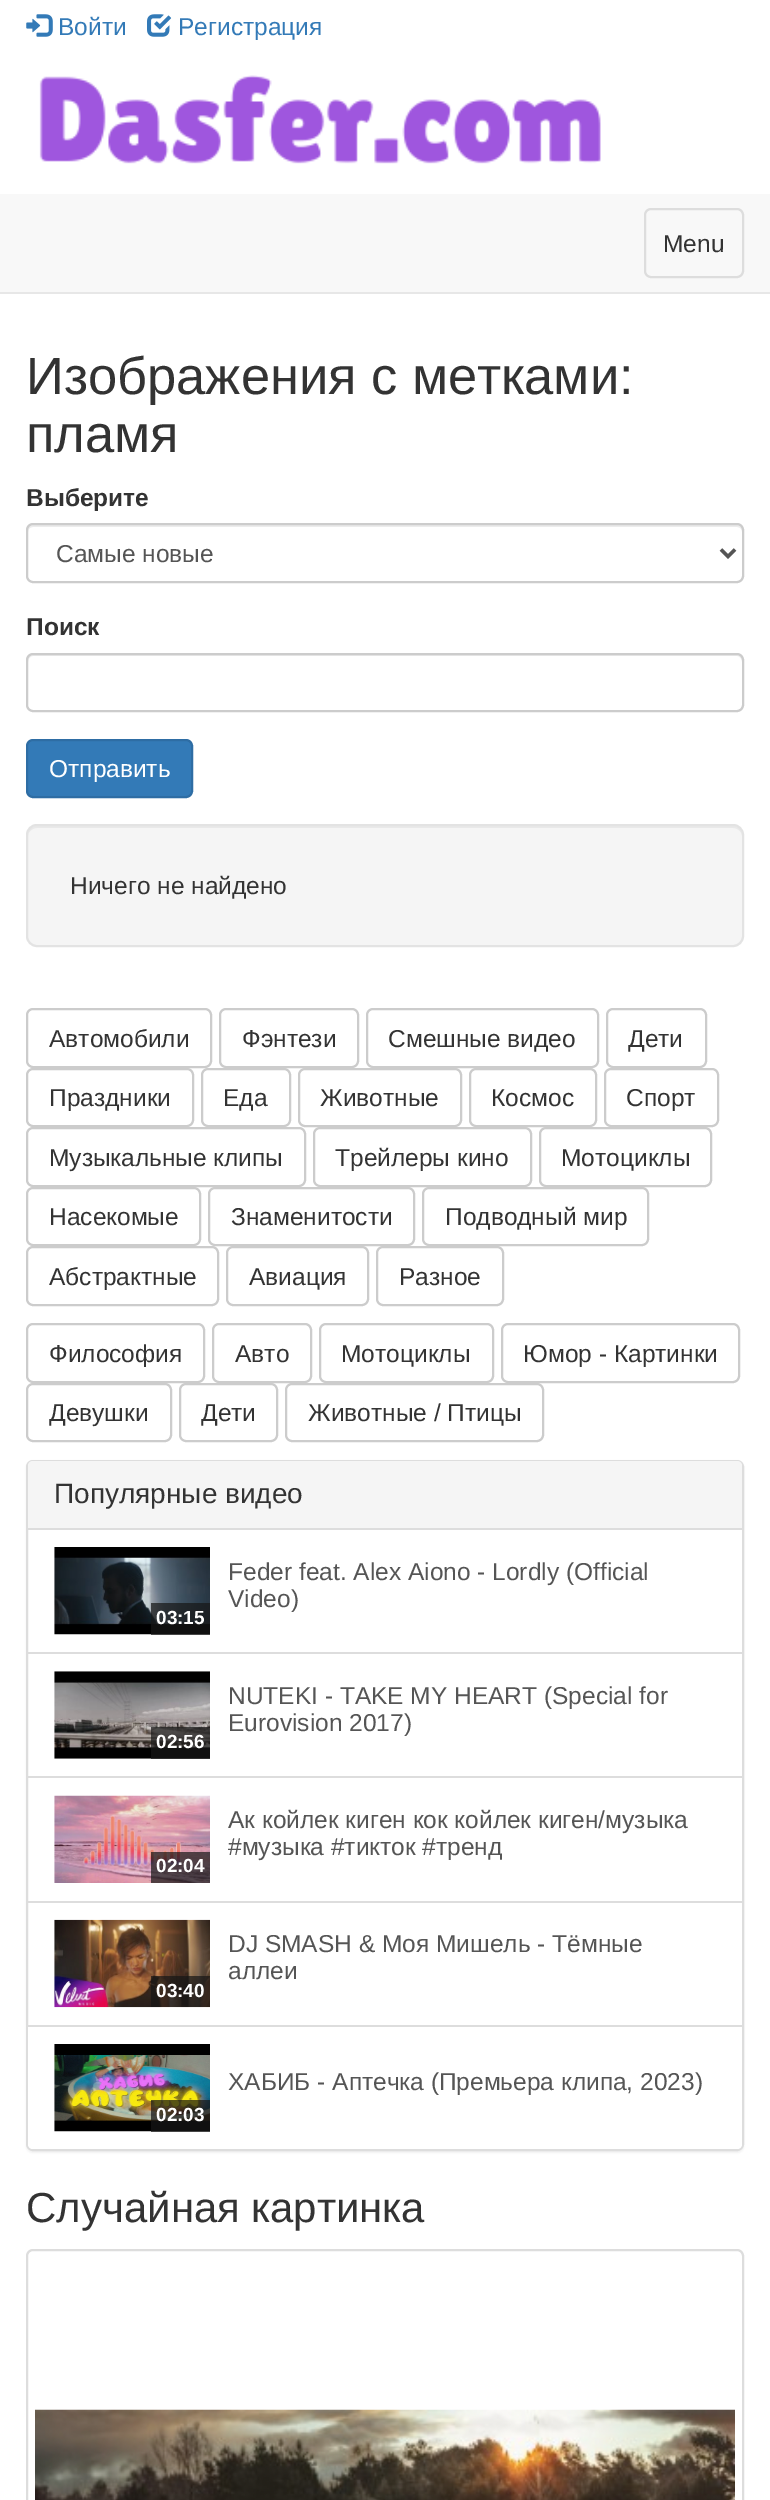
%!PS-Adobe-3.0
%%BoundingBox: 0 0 770 2500
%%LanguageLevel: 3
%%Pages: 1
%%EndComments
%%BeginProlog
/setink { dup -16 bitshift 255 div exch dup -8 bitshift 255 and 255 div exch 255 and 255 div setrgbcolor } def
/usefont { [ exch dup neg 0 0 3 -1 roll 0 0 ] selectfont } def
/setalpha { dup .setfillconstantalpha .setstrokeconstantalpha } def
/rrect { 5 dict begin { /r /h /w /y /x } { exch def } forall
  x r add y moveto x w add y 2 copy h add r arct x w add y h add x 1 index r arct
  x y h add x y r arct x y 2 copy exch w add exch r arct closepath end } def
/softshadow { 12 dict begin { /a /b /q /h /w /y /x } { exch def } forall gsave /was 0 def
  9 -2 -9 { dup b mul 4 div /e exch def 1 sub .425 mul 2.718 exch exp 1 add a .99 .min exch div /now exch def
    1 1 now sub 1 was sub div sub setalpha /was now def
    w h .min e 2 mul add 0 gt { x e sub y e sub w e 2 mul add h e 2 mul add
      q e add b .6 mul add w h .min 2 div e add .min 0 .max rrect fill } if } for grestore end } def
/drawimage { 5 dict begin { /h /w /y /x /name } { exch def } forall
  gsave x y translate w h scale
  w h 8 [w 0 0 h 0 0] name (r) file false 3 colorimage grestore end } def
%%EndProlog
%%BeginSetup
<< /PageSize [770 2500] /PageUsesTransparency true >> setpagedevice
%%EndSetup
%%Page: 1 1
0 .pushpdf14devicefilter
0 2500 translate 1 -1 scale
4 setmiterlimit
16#FFFFFF setink
0 0 770 2500 rectfill
(img1.raw) 26 14 27 23 drawimage
/LiberationSans-Regular 24.5 usefont
16#337AB7 setink
58 35 moveto (Войти) show
(img2.raw) 147 14 25 23 drawimage
178 35 moveto (Регистрация) show
(img3.raw) 39 75 562 89 drawimage
16#F8F8F8 setink
0 194 770 98 rectfill
16#E7E7E7 setink
0 292 770 2 rectfill
16#DDDDDD setink
2 setlinewidth
645 209 98 68 6 rrect stroke
16#333333 setink
663 252 moveto (Menu) show
/LiberationSans-Regular 52.5 usefont
26 394 moveto (Изображения с метками:) show
26 452 moveto (пламя) show
/LiberationSans-Bold 24.5 usefont
26 506 moveto (Выберите) show
16#ECECEC setink
33 527 moveto 737 527 lineto 740 527 742 529 742 532 curveto 742 530 lineto 742 527 740 525 737 525 curveto 33 525 lineto 30 525 28 527 28 530 curveto 28 532 lineto 28 529 30 527 33 527 curveto closepath fill
16#CCCCCC setink
27 524 716 58 6 rrect stroke
16#555555 setink
3.5 setlinewidth
721 549.5 moveto 728 556.5 lineto 735 549.5 lineto stroke
/LiberationSans-Regular 24.5 usefont
56 562 moveto (Самые новые) show
/LiberationSans-Bold 24.5 usefont
16#333333 setink
26 635 moveto (Поиск) show
16#ECECEC setink
33 656 moveto 737 656 lineto 740 656 742 659 742 662 curveto 742 660 lineto 742 657 740 655 737 655 curveto 33 655 lineto 30 655 28 657 28 660 curveto 28 662 lineto 28 659 30 656 33 656 curveto closepath fill
16#CCCCCC setink
2 setlinewidth
27 654 716 57 6 rrect stroke
16#337AB7 setink
27 740 165 57 6 rrect gsave fill grestore
16#2E6DA4 setink
stroke
/LiberationSans-Regular 24.5 usefont
16#FFFFFF setink
49 777 moveto (Отправить) show
16#F5F5F5 setink
26 824 718 123 11 rrect fill
16#E9E9E9 setink
37 828 moveto 733 828 lineto 738 828 742 832 742 836 curveto 742 831 739 826 733 826 curveto 37 826 lineto 31 826 28 831 28 836 curveto 28 832 32 828 37 828 curveto closepath fill
16#E3E3E3 setink
27 825 716 121 10 rrect stroke
16#333333 setink
70 894 moveto (Ничего не найдено) show
16#CCCCCC setink
27 1009 184 58 6 rrect stroke
16#333333 setink
49 1047 moveto (Автомобили) show
16#CCCCCC setink
220 1009 138 58 6 rrect stroke
16#333333 setink
242 1047 moveto (Фэнтези) show
16#CCCCCC setink
367 1009 231 58 6 rrect stroke
16#333333 setink
388 1047 moveto (Смешные видео) show
16#CCCCCC setink
607 1009 99 58 6 rrect stroke
16#333333 setink
628 1047 moveto (Дети) show
16#CCCCCC setink
27 1069 166 57 6 rrect stroke
16#333333 setink
49 1106 moveto (Праздники) show
16#CCCCCC setink
202 1069 88 57 6 rrect stroke
16#333333 setink
223 1106 moveto (Еда) show
16#CCCCCC setink
299 1069 162 57 6 rrect stroke
16#333333 setink
320 1106 moveto (Животные) show
16#CCCCCC setink
470 1069 126 57 6 rrect stroke
16#333333 setink
491 1106 moveto (Космос) show
16#CCCCCC setink
605 1069 113 57 6 rrect stroke
16#333333 setink
626 1106 moveto (Спорт) show
16#CCCCCC setink
27 1128 278 58 6 rrect stroke
16#333333 setink
49 1166 moveto (Музыкальные клипы) show
16#CCCCCC setink
314 1128 217 58 6 rrect stroke
16#333333 setink
335 1166 moveto (Трейлеры кино) show
16#CCCCCC setink
540 1128 171 58 6 rrect stroke
16#333333 setink
561 1166 moveto (Мотоциклы) show
16#CCCCCC setink
27 1188 173 57 6 rrect stroke
16#333333 setink
49 1225 moveto (Насекомые) show
16#CCCCCC setink
209 1188 205 57 6 rrect stroke
16#333333 setink
231 1225 moveto (Знаменитости) show
16#CCCCCC setink
423 1188 225 57 6 rrect stroke
16#333333 setink
445 1225 moveto (Подводный мир) show
16#CCCCCC setink
27 1247 191 58 6 rrect stroke
16#333333 setink
49 1285 moveto (Абстрактные) show
16#CCCCCC setink
227 1247 141 58 6 rrect stroke
16#333333 setink
249 1285 moveto (Авиация) show
16#CCCCCC setink
377 1247 126 58 6 rrect stroke
16#333333 setink
399 1285 moveto (Разное) show
16#CCCCCC setink
27 1324 177 58 6 rrect stroke
16#333333 setink
49 1362 moveto (Философия) show
16#CCCCCC setink
213 1324 98 58 6 rrect stroke
16#333333 setink
235 1362 moveto (Авто) show
16#CCCCCC setink
320 1324 173 58 6 rrect stroke
16#333333 setink
341 1362 moveto (Мотоциклы) show
16#CCCCCC setink
502 1324 237 58 6 rrect stroke
16#333333 setink
523 1362 moveto (Юмор - Картинки) show
16#CCCCCC setink
27 1384 144 57 6 rrect stroke
16#333333 setink
49 1421 moveto (Девушки) show
16#CCCCCC setink
180 1384 97 57 6 rrect stroke
16#333333 setink
201 1421 moveto (Дети) show
16#CCCCCC setink
286 1384 257 57 6 rrect stroke
16#333333 setink
308 1421 moveto (Животные / Птицы) show
16#000000 setink
26 1461 718 692 7 1 0.05 softshadow
16#FFFFFF setink
27 1461 716 689 6 rrect gsave fill grestore
16#DDDDDD setink
stroke
16#F5F5F5 setink
33 1461 moveto 737 1461 lineto 740 1461 742 1463 742 1466 curveto 742 1530 lineto 28 1530 lineto 28 1466 lineto 28 1463 30 1461 33 1461 curveto closepath fill
16#DDDDDD setink
28 1528 714 2 rectfill
/LiberationSans-Regular 28 usefont
16#333333 setink
54 1503 moveto (Популярные видео) show
16#DDDDDD setink
28 1652 714 2 rectfill
/LiberationSans-Regular 24.5 usefont
16#555555 setink
228 1580 moveto (Feder feat. Alex Aiono - Lordly \(Official) show
228 1607 moveto (Video\)) show
(img4.raw) 54 1547 156 88 drawimage
0.71 setalpha
16#161616 setink
151 1603 59 32 rectfill
/LiberationSans-Bold 19 usefont
1 setalpha
16#FFFFFF setink
156 1624 moveto (03:15) show
16#DDDDDD setink
28 1776 714 2 rectfill
/LiberationSans-Regular 24.5 usefont
16#555555 setink
228 1704 moveto (NUTEKI - TAKE MY HEART \(Special for) show
228 1731 moveto (Eurovision 2017\)) show
(img5.raw) 54 1671 156 88 drawimage
0.71 setalpha
16#161616 setink
151 1727 59 32 rectfill
/LiberationSans-Bold 19 usefont
1 setalpha
16#FFFFFF setink
156 1748 moveto (02:56) show
/LiberationSans-Regular 24.5 usefont
16#555555 setink
228 1828 moveto (Ак койлек киген кок койлек киген/музыка) show
228 1855 moveto (#музыка #тикток #тренд) show
(img6.raw) 54 1795 156 88 drawimage
0.71 setalpha
16#161616 setink
151 1852 59 31 rectfill
/LiberationSans-Bold 19 usefont
1 setalpha
16#FFFFFF setink
156 1872 moveto (02:04) show
16#DDDDDD setink
28 1901 714 2 rectfill
/LiberationSans-Regular 24.5 usefont
16#555555 setink
228 1952 moveto (DJ SMASH & Моя Мишель - Тёмные) show
228 1979 moveto (аллеи) show
(img7.raw) 54 1919 156 89 drawimage
0.71 setalpha
16#161616 setink
151 1976 59 31 rectfill
/LiberationSans-Bold 19 usefont
1 setalpha
16#FFFFFF setink
156 1997 moveto (03:40) show
28 2025 moveto 742 2025 lineto 742 2144 lineto 742 2147 740 2149 737 2149 curveto 33 2149 lineto 30 2149 28 2147 28 2144 curveto closepath fill
16#DDDDDD setink
28 2025 714 2 rectfill
/LiberationSans-Regular 24.5 usefont
16#555555 setink
228 2090 moveto (ХАБИБ - Аптечка \(Премьера клипа, 2023\)) show
(img8.raw) 54 2044 156 88 drawimage
0.71 setalpha
16#161616 setink
151 2100 59 32 rectfill
/LiberationSans-Bold 19 usefont
1 setalpha
16#FFFFFF setink
156 2121 moveto (02:03) show
/LiberationSans-Regular 42 usefont
16#333333 setink
26 2222 moveto (Случайная картинка) show
16#DDDDDD setink
27 2250 716 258 6 rrect stroke
(img9.raw) 35 2409 700 91 drawimage
.poppdf14devicefilter showpage
%%EOF
